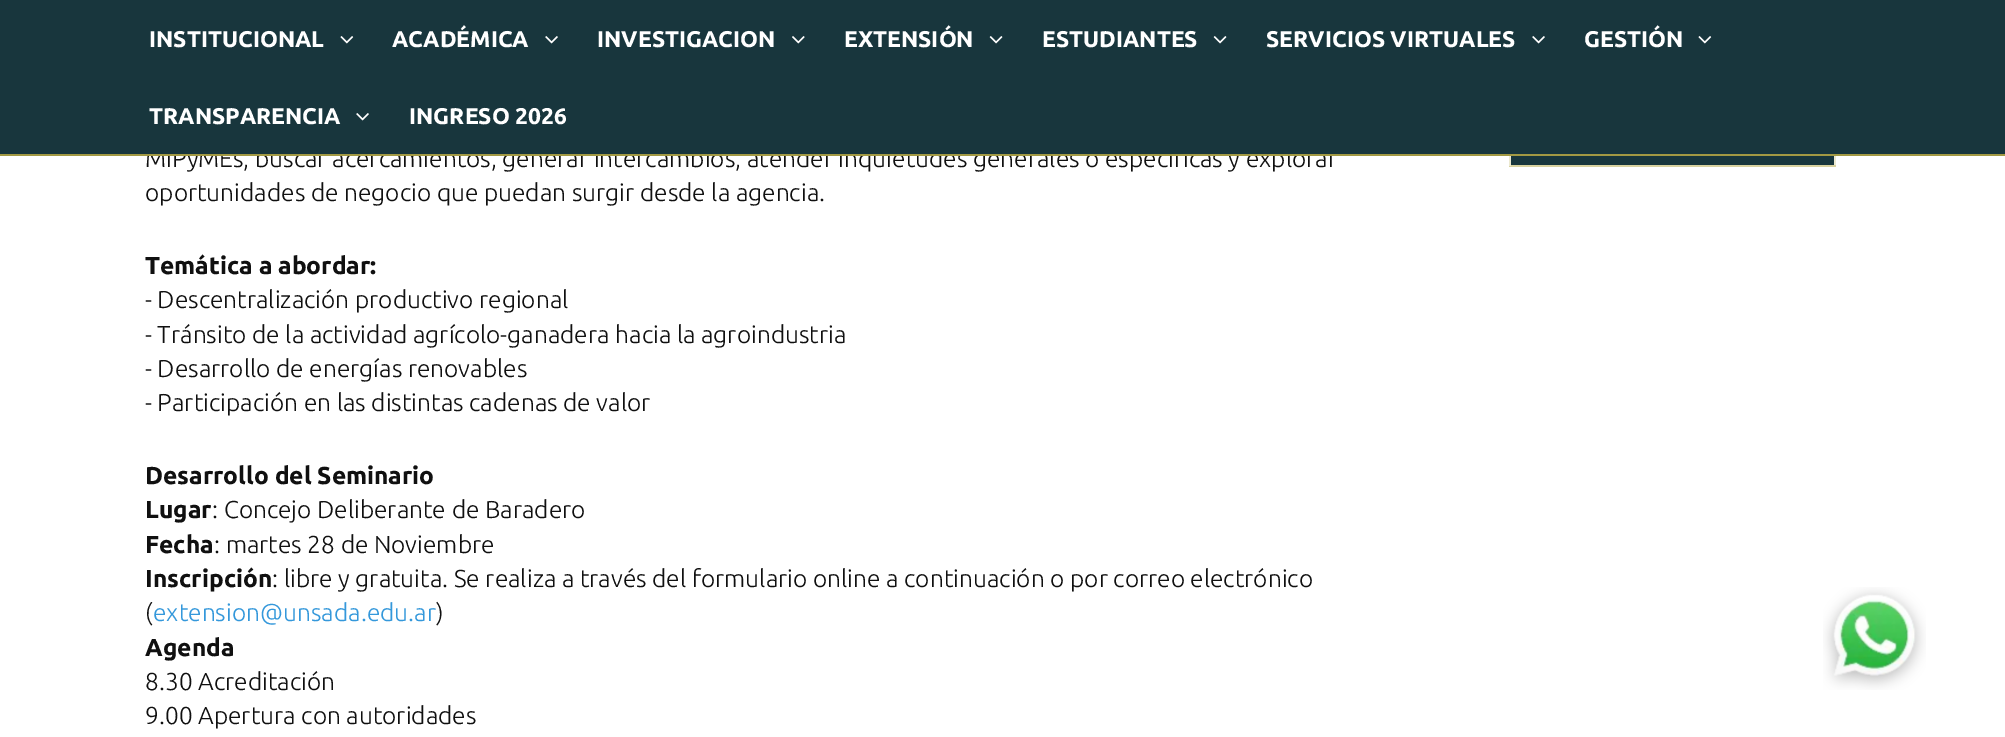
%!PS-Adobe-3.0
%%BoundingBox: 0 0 2005 737
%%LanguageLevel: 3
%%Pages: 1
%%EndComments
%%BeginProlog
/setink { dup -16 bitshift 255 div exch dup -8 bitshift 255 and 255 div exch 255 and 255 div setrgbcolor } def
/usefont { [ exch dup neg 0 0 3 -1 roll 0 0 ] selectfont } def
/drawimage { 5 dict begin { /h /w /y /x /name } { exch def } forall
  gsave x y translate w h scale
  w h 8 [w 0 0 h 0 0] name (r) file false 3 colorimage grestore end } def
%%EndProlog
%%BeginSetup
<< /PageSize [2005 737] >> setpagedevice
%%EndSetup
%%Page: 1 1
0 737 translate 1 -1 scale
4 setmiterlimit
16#FFFFFF setink
0 0 2005 737 rectfill
/Ubuntu-Light 24.5 usefont
16#101010 setink
145 167 moveto (MiPyMEs, buscar acercamientos, generar intercambios, atender inquietudes generales o específicas y explorar) show
16#18363D setink
0 0 2005 154 rectfill
16#A29943 setink
0 154 2005 2 rectfill
/Ubuntu-Bold 22.75 usefont
16#FFFFFF setink
149 47 moveto (INSTITUCIONAL) show
(img1.raw) 340 36 14 8 drawimage
392 47 moveto (ACADÉMICA) show
(img2.raw) 545 36 13 8 drawimage
597 47 moveto (INVESTIGACION) show
(img3.raw) 792 36 13 8 drawimage
844 47 moveto (EXTENSIÓN) show
(img4.raw) 989 36 14 8 drawimage
1042 47 moveto (ESTUDIANTES) show
(img4.raw) 1213 36 14 8 drawimage
1266 47 moveto (SERVICIOS VIRTUALES) show
(img2.raw) 1532 36 13 8 drawimage
1584 47 moveto (GESTIÓN) show
(img1.raw) 1698 36 14 8 drawimage
149 124 moveto (TRANSPARENCIA) show
(img2.raw) 356 113 13 8 drawimage
409 124 moveto (INGRESO 2026) show
/Ubuntu-Light 24.5 usefont
16#101010 setink
145 201 moveto (oportunidades de negocio que puedan surgir desde la agencia.) show
/Ubuntu-Bold 24.5 usefont
145 274 moveto (Temática a abordar:) show
/Ubuntu-Light 24.5 usefont
[
    [(- Descentralización productivo regional) 145 308]
    [(- Tránsito de la actividad agrícolo-ganadera hacia la agroindustria) 145 343]
    [(- Desarrollo de energías renovables) 145 377]
    [(- Participación en las distintas cadenas de valor) 145 411]
] { aload pop moveto show } forall
/Ubuntu-Bold 24.5 usefont
145 484 moveto (Desarrollo del Seminario) show
145 518 moveto (Lugar) show
/Ubuntu-Light 24.5 usefont
212 518 moveto (: Concejo Deliberante de Baradero) show
/Ubuntu-Bold 24.5 usefont
145 553 moveto (Fecha) show
/Ubuntu-Light 24.5 usefont
214 553 moveto (: martes 28 de Noviembre) show
/Ubuntu-Bold 24.5 usefont
145 587 moveto (Inscripción) show
/Ubuntu-Light 24.5 usefont
272 587 moveto (: libre y gratuita. Se realiza a través del formulario online a continuación o por correo electrónico) show
145 621 moveto (\() show
16#3498DB setink
153 621 moveto (extension@unsada.edu.ar) show
16#101010 setink
436 621 moveto (\)) show
/Ubuntu-Bold 24.5 usefont
145 656 moveto (Agenda) show
/Ubuntu-Light 24.5 usefont
145 690 moveto (8.30 Acreditación) show
145 724 moveto (9.00 Apertura con autoridades) show
[
    [1511 156 323 9 16#18363D]
    [1834 156 2 10 16#ECE9D1]
    [1509 165 327 2 16#D8D2A0]
    [1509 156 2 10 16#ECE9D1]
] { aload pop setink rectfill } forall
(img5.raw) 1823 587 103 103 drawimage
showpage
%%EOF
